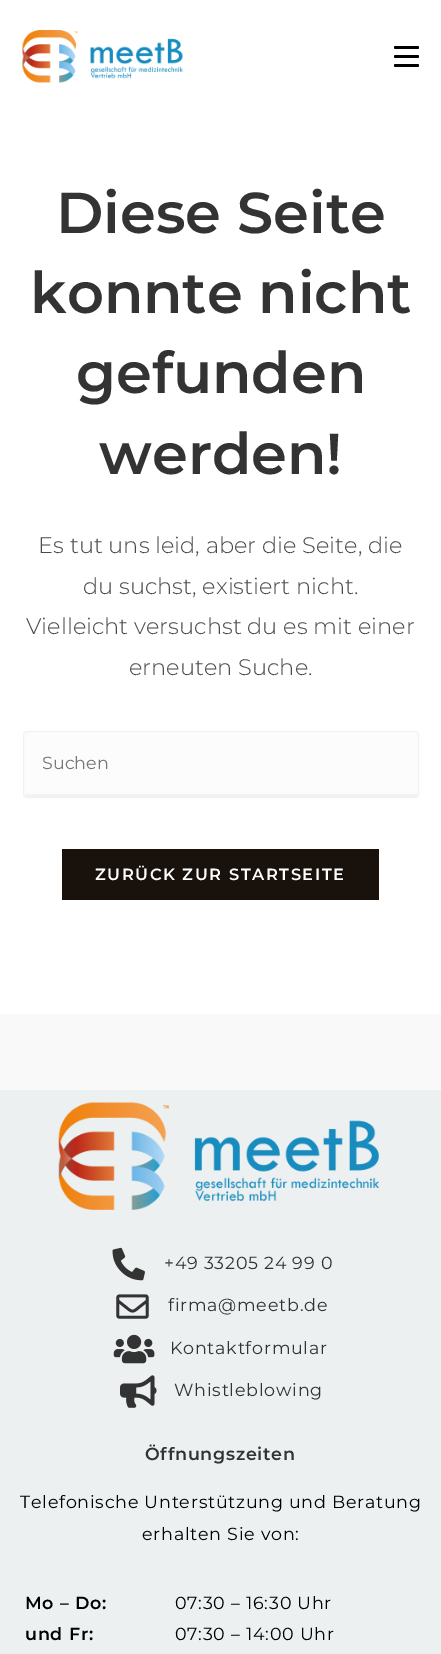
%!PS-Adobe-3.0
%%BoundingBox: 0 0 441 1654
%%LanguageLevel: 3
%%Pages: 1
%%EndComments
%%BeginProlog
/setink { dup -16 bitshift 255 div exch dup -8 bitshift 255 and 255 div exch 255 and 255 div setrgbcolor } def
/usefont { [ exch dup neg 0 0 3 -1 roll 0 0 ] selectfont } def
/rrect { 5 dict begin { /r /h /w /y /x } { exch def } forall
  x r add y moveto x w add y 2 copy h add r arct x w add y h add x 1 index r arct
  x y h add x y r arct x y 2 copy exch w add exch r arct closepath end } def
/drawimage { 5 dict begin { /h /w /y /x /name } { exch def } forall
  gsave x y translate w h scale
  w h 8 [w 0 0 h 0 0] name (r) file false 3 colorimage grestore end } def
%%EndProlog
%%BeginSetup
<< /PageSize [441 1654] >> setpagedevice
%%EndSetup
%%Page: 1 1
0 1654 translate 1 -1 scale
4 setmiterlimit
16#FFFFFF setink
0 0 441 1654 rectfill
(img1.raw) 22 30 161 53 drawimage
16#000000 setink
394 64 25 3 1.5 rrect fill
394 46 25 3 1.5 rrect fill
394 55 25 3 1.5 rrect fill
/Montserrat-SemiBold 57.5 usefont
16#333333 setink
[
    [(Diese Seite) 56 233]
    [(konnte nicht) 30 313]
    [(gefunden) 76 393]
    [(werden!) 99 474]
] { aload pop moveto show } forall
/Montserrat-Light 22.5 usefont
16#4A4A4A setink
[
    [(Es tut uns leid, aber die Seite, die) 38 553]
    [(du suchst, existiert nicht.) 83 594]
    [(Vielleicht versuchst du es mit einer) 26 634]
    [(erneuten Suche.) 129 675]
] { aload pop moveto show } forall
16#FCFCFC setink
26 732 moveto 415 732 lineto 416 732 418 734 418 735 curveto 418 794 lineto 24 794 lineto 24 735 lineto 24 734 25 732 26 732 curveto closepath fill
16#F2F2F2 setink
23.5 731.5 395 66 3.5 rrect stroke
25 794 393 3 rectfill
/Montserrat-Regular 17.5 usefont
16#757575 setink
42 769 moveto (Suchen) show
16#19110B setink
62 849 317 51 rectfill
/Montserrat-SemiBold 16.25 usefont
16#FFFFFF setink
95 880 moveto 1.6 0 (ZURÜCK ZUR STARTSEITE) ashow
16#F9F9F9 setink
0 1014 441 76 rectfill
16#EDF0F1 setink
0 1090 441 564 rectfill
(img2.raw) 58 1102 322 108 drawimage
(img3.raw) 112 1247 33 34 drawimage
/Montserrat-Regular 17.5 usefont
16#333333 setink
164 1269 moveto 0.75 0 (+49 33205 24 99 0) ashow
(img4.raw) 116 1294 33 25 drawimage
168 1311 moveto 0.75 0 (firma@meetb.de) ashow
(img5.raw) 113 1334 42 30 drawimage
170 1354 moveto 0.75 0 (Kontaktformular) ashow
(img6.raw) 120 1375 37 33 drawimage
174 1396 moveto 0.75 0 (Whistleblowing) ashow
/Montserrat-SemiBold 17.5 usefont
145 1460 moveto 0.75 0 (Öffnungszeiten) ashow
/Montserrat-Regular 17.5 usefont
16#000000 setink
20 1508 moveto 0.75 0 (Telefonische Unterstützung und Beratung) ashow
142 1540 moveto 0.75 0 (erhalten Sie von:) ashow
/Montserrat-SemiBold 17.5 usefont
25 1609 moveto 0.75 0 (Mo – Do:) ashow
25 1640 moveto 0.75 0 (und Fr:) ashow
/Montserrat-Regular 17.5 usefont
175 1609 moveto 0.75 0 (07:30 – 16:30 Uhr) ashow
175 1640 moveto 0.75 0 (07:30 – 14:00 Uhr) ashow
showpage
%%EOF
